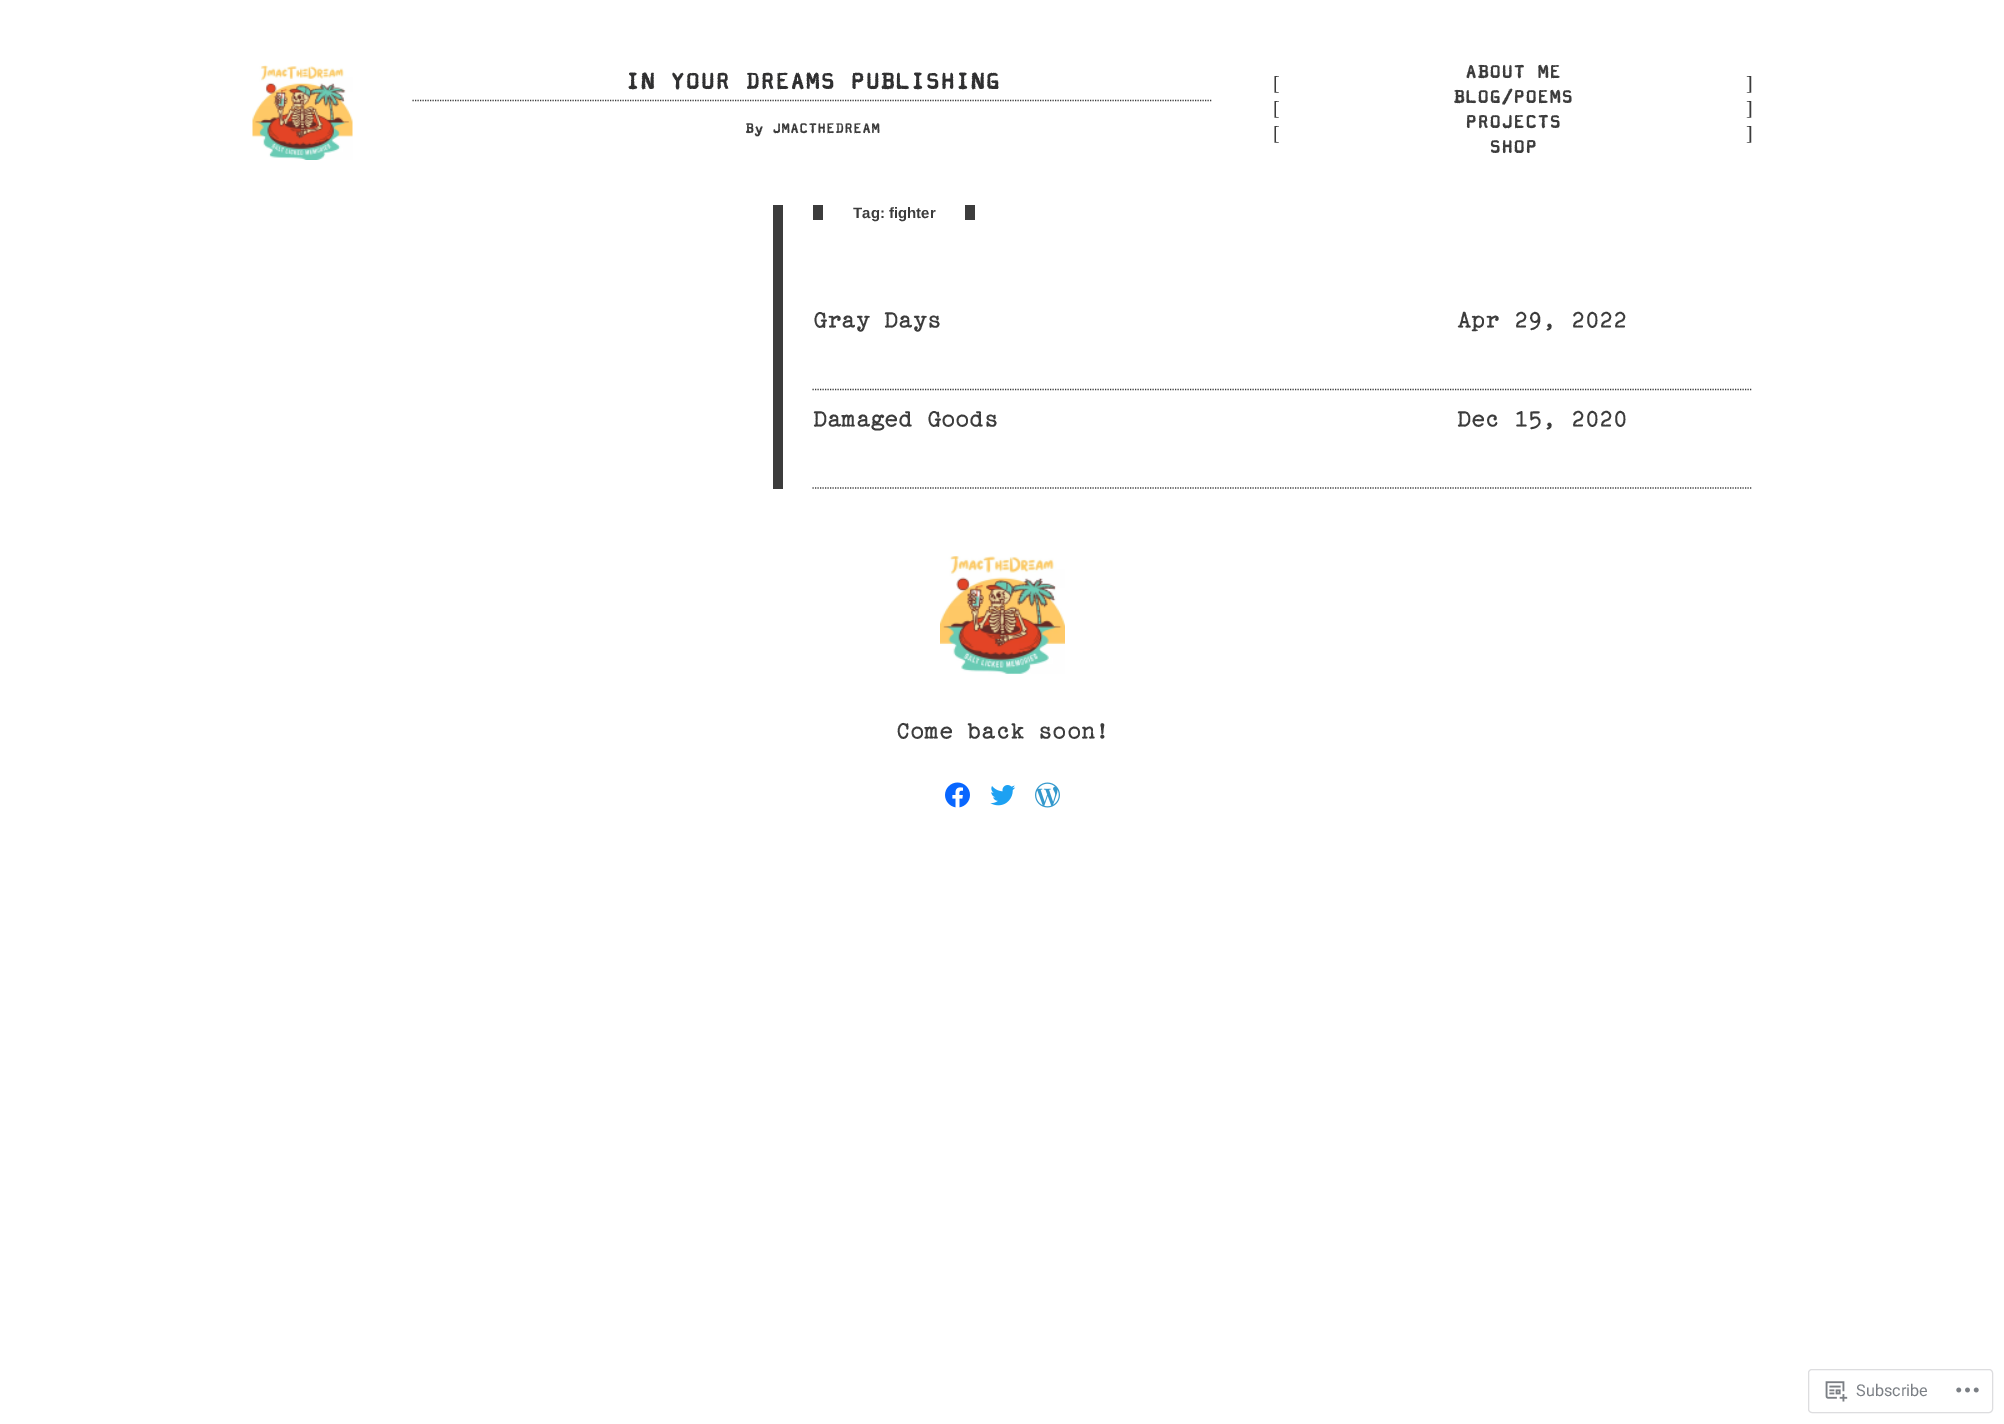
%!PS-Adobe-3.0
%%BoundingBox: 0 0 2004 1424
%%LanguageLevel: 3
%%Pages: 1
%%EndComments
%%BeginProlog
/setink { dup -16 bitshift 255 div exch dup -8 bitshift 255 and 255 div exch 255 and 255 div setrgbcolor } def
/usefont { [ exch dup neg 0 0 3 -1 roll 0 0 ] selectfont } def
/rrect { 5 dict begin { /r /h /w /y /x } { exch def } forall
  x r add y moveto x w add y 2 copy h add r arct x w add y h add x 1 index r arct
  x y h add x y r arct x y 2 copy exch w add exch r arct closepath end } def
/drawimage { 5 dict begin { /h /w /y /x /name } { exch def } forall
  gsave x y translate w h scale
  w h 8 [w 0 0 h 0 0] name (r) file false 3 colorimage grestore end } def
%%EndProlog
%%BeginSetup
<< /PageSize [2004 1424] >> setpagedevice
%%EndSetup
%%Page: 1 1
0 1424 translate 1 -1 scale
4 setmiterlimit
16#FFFFFF setink
0 0 2004 1424 rectfill
(img1.raw) 252 65 101 95 drawimage
16#3C3C3C setink
1.2 setlinewidth
[1.25 1.25] 0 setdash
412.5 100.5 moveto 1212.5 100.5 lineto stroke
/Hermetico-Bold 25 usefont
16#303031 setink
625 89 moveto (IN YOUR DREAMS PUBLISHING) show
/Hermetico-Bold 15 usefont
16#3C3C3C setink
745 133 moveto (By JMACTHEDREAM) show
/LiberationSerif-Regular 20 usefont
[
    [([) 1273 90]
    [([) 1273 115]
    [([) 1273 140]
] { aload pop moveto show } forall
/Hermetico-Bold 20 usefont
[
    [(ABOUT ME) 1465 78]
    [(BLOG/POEMS) 1453 103]
    [(PROJECTS) 1465 128]
    [(SHOP) 1489 153]
] { aload pop moveto show } forall
/LiberationSerif-Regular 20 usefont
[
    [(]) 1746 90]
    [(]) 1746 115]
    [(]) 1746 140]
] { aload pop moveto show } forall
[
    [773 205 10 284 16#3C3C3C]
    [965 205 10 15 16#3C3C3C]
    [813 205 10 15 16#3C3C3C]
] { aload pop setink rectfill } forall
/LiberationSans-Bold 15 usefont
853 218 moveto (Tag: fighter) show
812.5 389.5 moveto 1752.5 389.5 lineto stroke
/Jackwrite-Regular 26 usefont
813 327 moveto (Gray Days) show
1457 327 moveto (Apr 29, 2022) show
812.5 488 moveto 1752.5 488 lineto stroke
813 426 moveto (Damaged Goods) show
1457 426 moveto (Dec 15, 2020) show
(img2.raw) 940 556 125 118 drawimage
896 738 moveto (Come back soon!) show
(img3.raw) 945 782 25 26 drawimage
(img4.raw) 990 785 26 21 drawimage
(img5.raw) 1035 782 25 26 drawimage
16#DDDDDF setink
1 setlinewidth
[] 0 setdash
1808.5 1369.5 184 43 3.5 rrect stroke
(img6.raw) 1825 1381 23 21 drawimage
/Roboto-Regular 16.25 usefont
16#7B7F85 setink
1856 1396 moveto (Subscribe) show
(img7.raw) 1956 1387 23 6 drawimage
showpage
%%EOF
